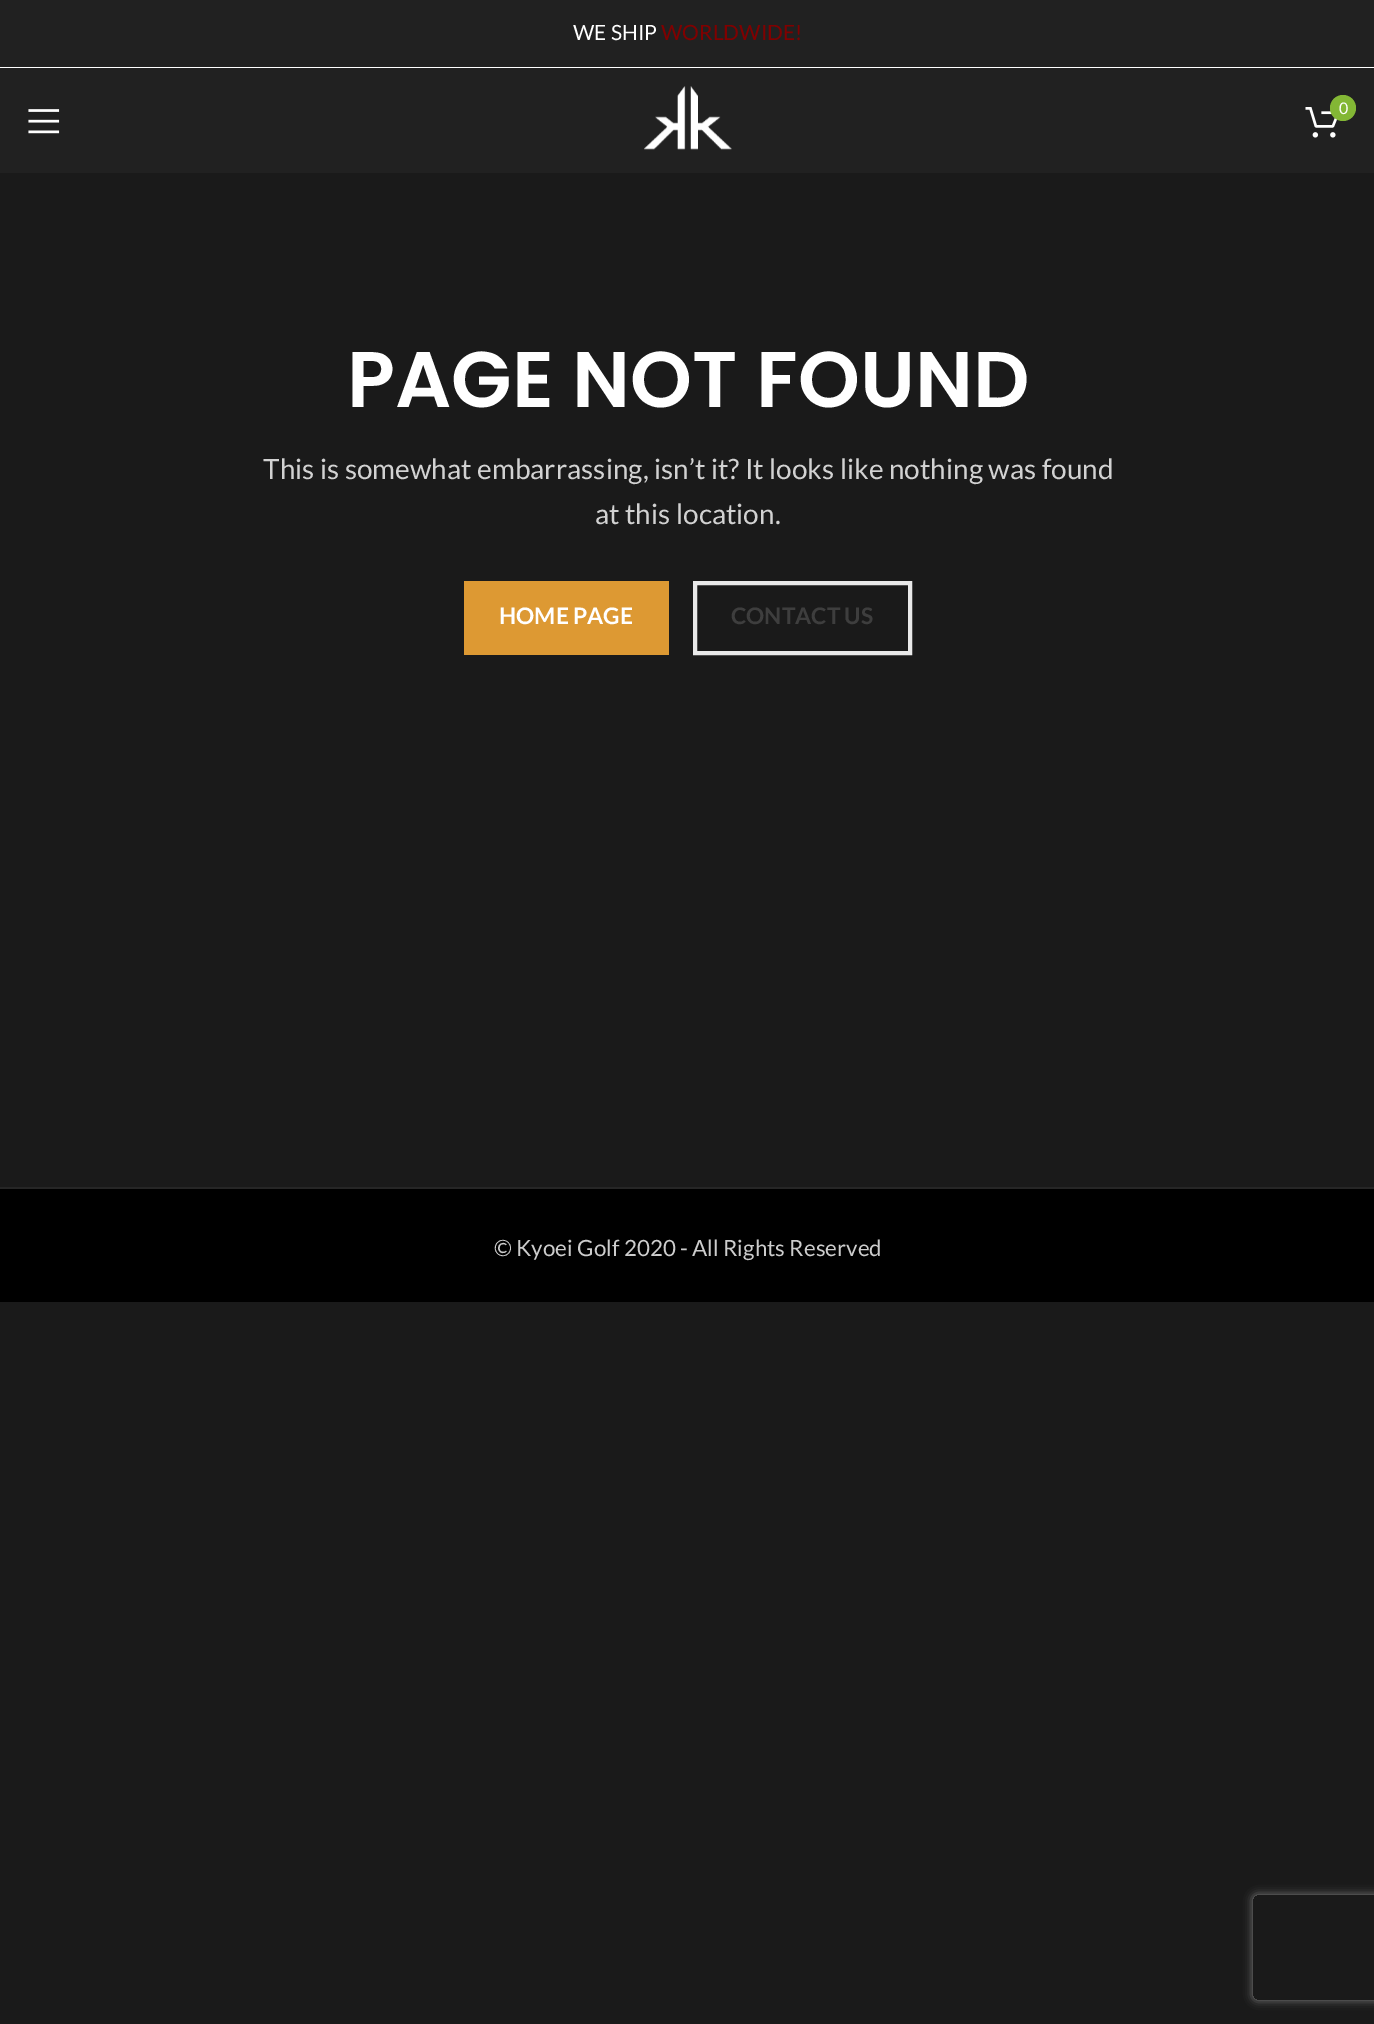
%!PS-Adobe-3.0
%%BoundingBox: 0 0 1374 2024
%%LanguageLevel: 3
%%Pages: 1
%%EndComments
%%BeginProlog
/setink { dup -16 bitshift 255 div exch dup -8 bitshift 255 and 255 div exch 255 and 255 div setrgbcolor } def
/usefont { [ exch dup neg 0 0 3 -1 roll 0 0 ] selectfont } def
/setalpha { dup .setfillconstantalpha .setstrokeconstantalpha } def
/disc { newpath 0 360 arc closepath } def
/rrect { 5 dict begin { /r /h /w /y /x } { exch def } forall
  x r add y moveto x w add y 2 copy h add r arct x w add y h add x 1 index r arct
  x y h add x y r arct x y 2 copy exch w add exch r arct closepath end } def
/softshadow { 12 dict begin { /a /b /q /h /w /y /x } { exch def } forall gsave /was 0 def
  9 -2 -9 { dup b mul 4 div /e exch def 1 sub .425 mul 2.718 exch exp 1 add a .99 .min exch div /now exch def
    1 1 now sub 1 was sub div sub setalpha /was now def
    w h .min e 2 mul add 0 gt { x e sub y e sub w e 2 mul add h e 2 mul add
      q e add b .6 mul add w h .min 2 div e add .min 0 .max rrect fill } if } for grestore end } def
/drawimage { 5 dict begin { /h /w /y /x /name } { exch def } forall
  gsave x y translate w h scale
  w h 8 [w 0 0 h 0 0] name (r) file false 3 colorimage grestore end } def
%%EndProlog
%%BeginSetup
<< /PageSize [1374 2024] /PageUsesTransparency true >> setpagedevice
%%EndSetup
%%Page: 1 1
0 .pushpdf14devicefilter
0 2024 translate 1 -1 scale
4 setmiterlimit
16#1A1A1A setink
0 0 1374 2024 rectfill
16#212121 setink
0 0 1374 67 rectfill
16#FFFFFF setink
0 67 1374 1 rectfill
/Lato-Regular 21 usefont
573 40 moveto (WE SHIP) show
16#800000 setink
661 40 moveto (WORLDWIDE!) show
16#212121 setink
0 68 1374 105 rectfill
(img1.raw) 28 109 32 25 drawimage
(img2.raw) 644 86 88 64 drawimage
(img3.raw) 1305 107 33 31 drawimage
16#83B735 setink
1343 108 13 disc fill
/Lato-Regular 16 usefont
16#FFFFFF setink
1339 114 moveto (0) show
/Poppins-SemiBold 78.75 usefont
347 407 moveto (PAGE NOT FOUND) show
/Lato-Regular 28 usefont
16#D2D2D2 setink
263 479 moveto (This is somewhat embarrassing, isn’t it? It looks like nothing was found) show
595 524 moveto (at this location.) show
16#DD9933 setink
464 581 205 74 rectfill
/Lato-Bold 22.75 usefont
16#FFFFFF setink
499 624 moveto (HOME PAGE) show
16#E9E9E9 setink
4 setlinewidth
695 583 215 70 rectstroke
16#3E3E3E setink
731 624 moveto (CONTACT US) show
16#000000 setink
0 1189 1374 113 rectfill
16#262626 setink
0 1187 1374 2 rectfill
/Lato-Regular 22.4 usefont
16#CCCCCC setink
494 1256 moveto (© Kyoei Golf 2020 - All Rights Reserved) show
gsave
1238 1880 moveto 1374 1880 lineto 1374 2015 lineto 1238 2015 lineto closepath 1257 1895 moveto 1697 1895 lineto 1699 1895 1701 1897 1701 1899 curveto 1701 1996 lineto 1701 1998 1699 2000 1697 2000 curveto 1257 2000 lineto 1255 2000 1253 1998 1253 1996 curveto 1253 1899 lineto 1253 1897 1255 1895 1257 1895 curveto closepath eoclip newpath
16#808080 setink
1253 1895 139 105 4 4.5 1 softshadow
grestore
.poppdf14devicefilter showpage
%%EOF
